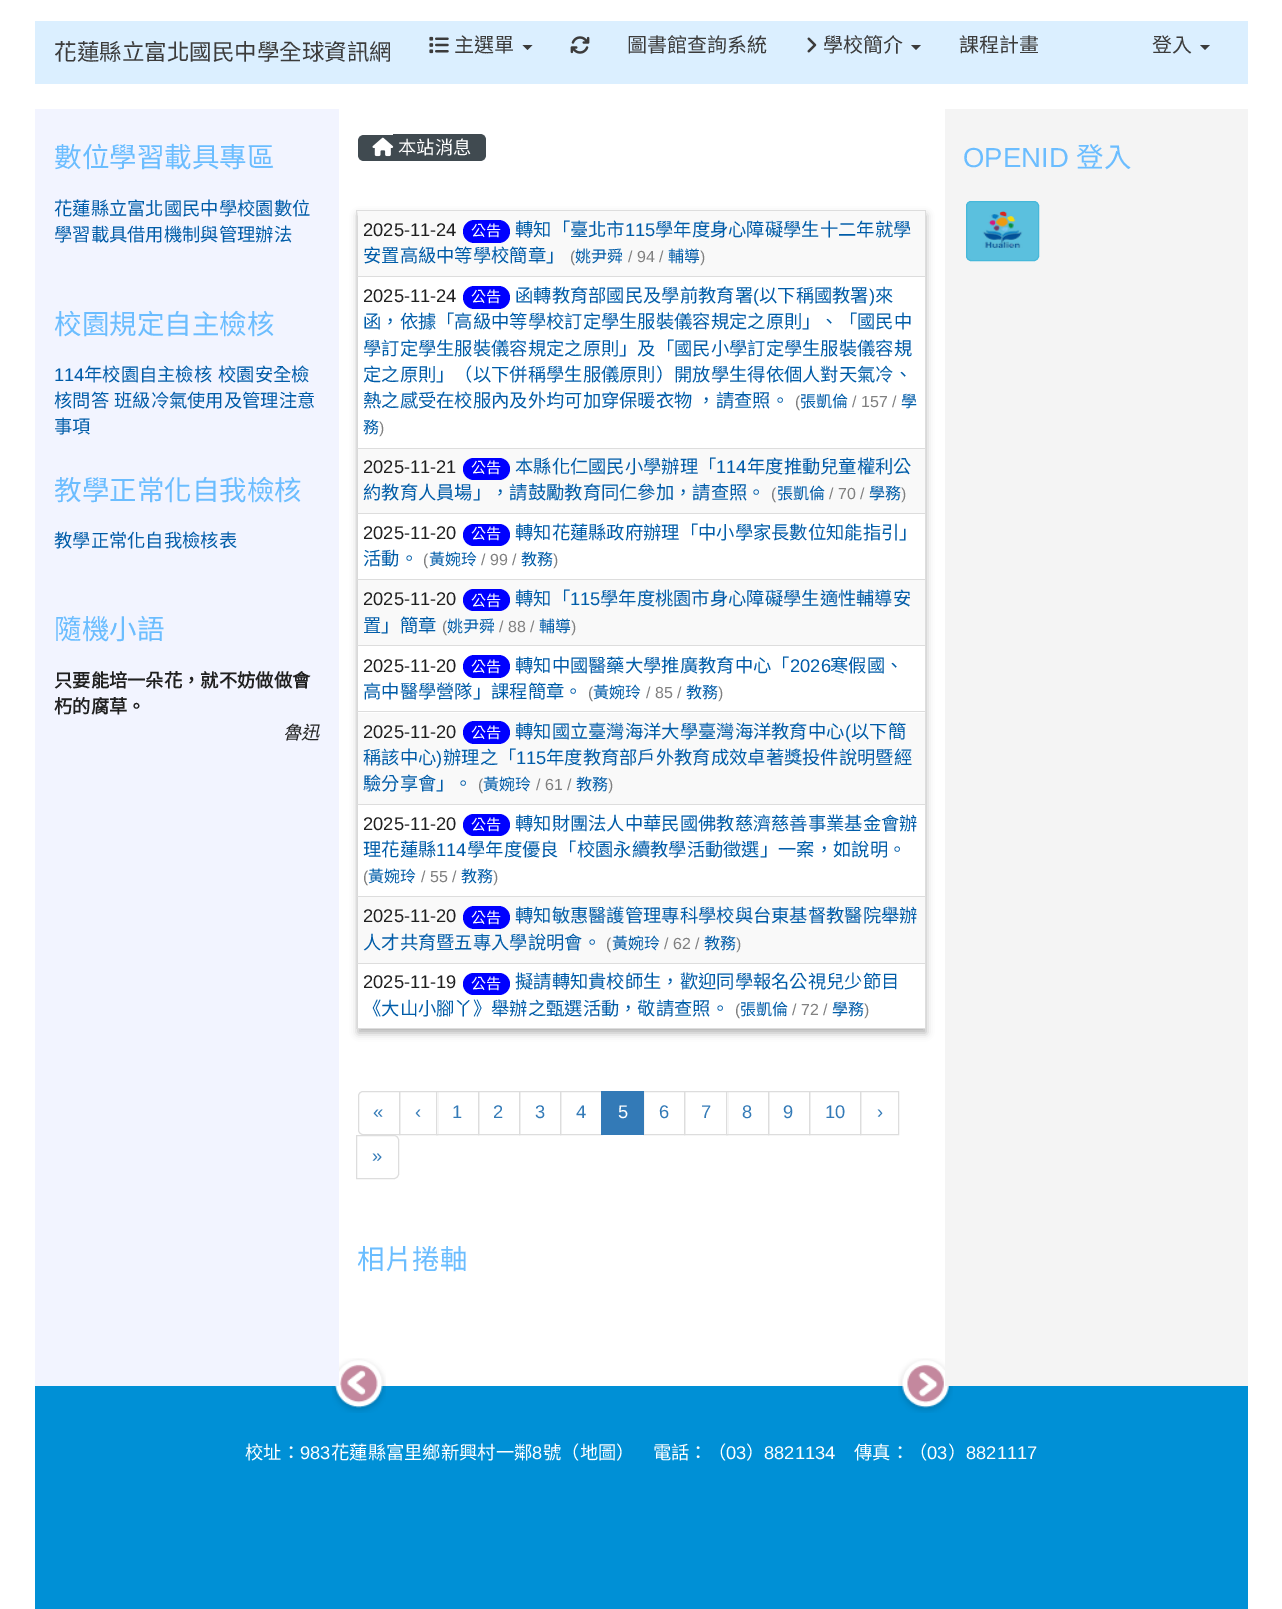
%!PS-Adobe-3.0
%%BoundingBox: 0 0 1282 1609
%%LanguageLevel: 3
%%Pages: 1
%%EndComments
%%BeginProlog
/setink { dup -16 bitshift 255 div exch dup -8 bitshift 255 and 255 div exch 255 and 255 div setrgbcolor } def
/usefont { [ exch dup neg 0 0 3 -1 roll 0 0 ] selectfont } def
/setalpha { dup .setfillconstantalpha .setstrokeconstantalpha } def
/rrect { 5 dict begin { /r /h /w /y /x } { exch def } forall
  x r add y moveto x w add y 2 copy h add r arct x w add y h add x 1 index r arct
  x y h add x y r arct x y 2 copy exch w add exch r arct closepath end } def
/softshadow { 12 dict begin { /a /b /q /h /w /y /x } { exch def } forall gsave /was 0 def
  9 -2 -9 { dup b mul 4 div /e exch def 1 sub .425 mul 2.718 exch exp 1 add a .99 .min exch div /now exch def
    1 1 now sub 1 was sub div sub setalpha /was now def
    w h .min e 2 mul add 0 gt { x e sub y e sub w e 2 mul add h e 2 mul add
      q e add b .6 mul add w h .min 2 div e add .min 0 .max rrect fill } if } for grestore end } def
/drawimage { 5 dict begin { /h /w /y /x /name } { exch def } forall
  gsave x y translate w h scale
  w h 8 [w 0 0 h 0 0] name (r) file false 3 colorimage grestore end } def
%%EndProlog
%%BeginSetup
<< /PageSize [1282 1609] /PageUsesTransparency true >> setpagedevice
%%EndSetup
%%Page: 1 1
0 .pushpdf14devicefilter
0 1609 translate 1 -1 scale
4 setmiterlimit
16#FFFFFF setink
0 0 1282 1609 rectfill
16#DBEFFF setink
35 21 1213 63 rectfill
/NotoSansCJKTC-Regular 22.5 usefont
16#3B3B3B setink
54 60 moveto (花蓮縣立富北國民中學全球資訊網) show
(img1.raw) 429 36 20 18 drawimage
/NotoSansCJKTC-Regular 20 usefont
454 52 moveto (主選單) show
522.5 45 moveto 532.5 45 lineto 527.5 50 lineto closepath fill
(img2.raw) 570 36 20 18 drawimage
627 52 moveto (圖書館查詢系統) show
(img3.raw) 807 37 10 16 drawimage
823 52 moveto (學校簡介) show
911 45 moveto 921 45 lineto 916 50 lineto closepath fill
959 52 moveto (課程計畫) show
1152 52 moveto (登入) show
1200 45 moveto 1210 45 lineto 1205 50 lineto closepath fill
16#0090D6 setink
35 1386 1213 223 rectfill
(img5.raw) 332 1358 54 55 drawimage
16#F2F4FF setink
35 109 304 1277 rectfill
/NotoSansCJKTC-Regular 27.5 usefont
16#6BBDFF setink
54 167 moveto (數位學習載具專區) show
/NotoSansCJKTC-Regular 18.3 usefont
16#005CA8 setink
54 215 moveto (花蓮縣立富北國民中學校園數位) show
54 241 moveto (學習載具借用機制與管理辦法) show
/NotoSansCJKTC-Regular 27.5 usefont
16#6BBDFF setink
54 334 moveto (校園規定自主檢核) show
/LiberationSans-Regular 18.3 usefont
16#005CA8 setink
54 381 moveto (114) show
/NotoSansCJKTC-Regular 18.3 usefont
[
    [(年校園自主檢核) 84 381]
    [(校園安全檢) 218 381]
    [(核問答) 54 407]
    [(班級冷氣使用及管理注意) 114 407]
    [(事項) 54 433]
] { aload pop moveto show } forall
/NotoSansCJKTC-Regular 27.5 usefont
16#6BBDFF setink
54 500 moveto (教學正常化自我檢核) show
/NotoSansCJKTC-Regular 18.3 usefont
16#005CA8 setink
54 547 moveto (教學正常化自我檢核表) show
/NotoSansCJKTC-Regular 27.5 usefont
16#6BBDFF setink
54 639 moveto (隨機小語) show
/NotoSansCJKTC-Bold 18.3 usefont
16#202020 setink
54 687 moveto (只要能培一朵花，就不妨做做會) show
54 713 moveto (朽的腐草。) show
/NotoSansCJKTC-Italic 18.3 usefont
283 739 moveto (魯迅) show
16#404A50 setink
364 135 moveto 393 135 lineto 393 161 lineto 364 161 lineto 360.5 161 358 158.5 358 155 curveto 358 141 lineto 358 137.5 360.5 135 364 135 curveto closepath fill
393 134 moveto 480 134 lineto 483.5 134 486 136.5 486 140 curveto 486 155 lineto 486 158.5 483.5 161 480 161 curveto 393 161 lineto closepath fill
(img4.raw) 372 137 22 20 drawimage
/NotoSansCJKTC-Regular 18.3 usefont
16#FFFFFF setink
398 154 moveto (本站消息) show
16#000000 setink
358 215 568 818 0 4 0.3 softshadow
[
    [358 277 567 751 16#FFFFFF]
    [358 211 567 65 16#F9F9F9]
    [356 210 570 1 16#DDDDDD]
    [356 276 570 1 16#DDDDDD]
    [356 448 570 1 16#DDDDDD]
    [356 513 570 1 16#DDDDDD]
    [356 579 570 1 16#DDDDDD]
    [356 645 570 1 16#DDDDDD]
    [356 711 570 1 16#DDDDDD]
    [356 804 570 1 16#DDDDDD]
    [356 896 570 1 16#DDDDDD]
    [356 963 570 1 16#DDDDDD]
    [925 963 1 66 16#DDDDDD]
    [925 896 1 68 16#DDDDDD]
    [925 804 1 94 16#DDDDDD]
    [925 711 1 94 16#DDDDDD]
    [925 645 1 68 16#DDDDDD]
    [925 579 1 67 16#DDDDDD]
    [925 513 1 67 16#DDDDDD]
    [925 448 1 66 16#DDDDDD]
    [925 276 1 173 16#DDDDDD]
    [925 210 1 68 16#DDDDDD]
    [356 1028 570 1 16#DDDDDD]
    [356 963 1 66 16#DDDDDD]
    [356 896 1 68 16#DDDDDD]
    [356 804 1 94 16#DDDDDD]
    [356 711 1 94 16#DDDDDD]
    [356 645 1 68 16#DDDDDD]
    [356 579 1 67 16#DDDDDD]
    [356 513 1 67 16#DDDDDD]
    [356 448 1 66 16#DDDDDD]
    [356 276 1 173 16#DDDDDD]
    [356 210 1 68 16#DDDDDD]
] { aload pop setink rectfill } forall
/LiberationSans-Regular 18.3 usefont
16#202020 setink
363 236 moveto (2025-11-24) show
16#0000FF setink
463 220 47 23 11.5 rrect fill
/NotoSansCJKTC-Regular 15 usefont
16#FFFFFF setink
471 236 moveto (公告) show
/NotoSansCJKTC-Regular 18.3 usefont
16#005CA8 setink
515 236 moveto (轉知「臺北市) show
/LiberationSans-Regular 18.3 usefont
625 236 moveto (115) show
/NotoSansCJKTC-Regular 18.3 usefont
655 236 moveto (學年度身心障礙學生十二年就學) show
363 262 moveto (安置高級中等學校簡章」) show
/LiberationSans-Regular 16 usefont
16#808080 setink
570 262 moveto (\() show
/NotoSansCJKTC-Regular 16 usefont
16#005CA8 setink
575 262 moveto (姚尹舜) show
/LiberationSans-Regular 16 usefont
16#808080 setink
628 262 moveto (/ 94 /) show
/NotoSansCJKTC-Regular 16 usefont
16#005CA8 setink
668 262 moveto (輔導) show
/LiberationSans-Regular 16 usefont
16#808080 setink
700 262 moveto (\)) show
/LiberationSans-Regular 18.3 usefont
16#202020 setink
363 302 moveto (2025-11-24) show
16#0000FF setink
463 286 47 23 11.5 rrect fill
/NotoSansCJKTC-Regular 15 usefont
16#FFFFFF setink
471 302 moveto (公告) show
/NotoSansCJKTC-Regular 18.3 usefont
16#005CA8 setink
515 302 moveto (函轉教育部國民及學前教育署) show
/LiberationSans-Regular 18.3 usefont
753 302 moveto (\() show
/NotoSansCJKTC-Regular 18.3 usefont
759 302 moveto (以下稱國教署) show
/LiberationSans-Regular 18.3 usefont
869 302 moveto (\)) show
/NotoSansCJKTC-Regular 18.3 usefont
[
    [(來) 875 302]
    [(函，依據「高級中等學校訂定學生服裝儀容規定之原則」、「國民中) 363 328]
    [(學訂定學生服裝儀容規定之原則」及「國民小學訂定學生服裝儀容規) 363 355]
    [(定之原則」（以下併稱學生服儀原則）開放學生得依個人對天氣冷、) 363 381]
] { aload pop moveto show } forall
363 407 moveto 1 0 32 (熱之感受在校服內及外均可加穿保暖衣物 ，請查照。) widthshow
/LiberationSans-Regular 16 usefont
16#808080 setink
795 407 moveto (\() show
/NotoSansCJKTC-Regular 16 usefont
16#005CA8 setink
800 407 moveto (張凱倫) show
/LiberationSans-Regular 16 usefont
16#808080 setink
852 407 moveto (/ 157 /) show
/NotoSansCJKTC-Regular 16 usefont
16#005CA8 setink
901 407 moveto (學) show
363 433 moveto (務) show
/LiberationSans-Regular 16 usefont
16#808080 setink
379 433 moveto (\)) show
16#F9F9F9 setink
358 449 567 64 rectfill
/LiberationSans-Regular 18.3 usefont
16#202020 setink
363 473 moveto (2025-11-21) show
16#0000FF setink
463 458 47 22 11 rrect fill
/NotoSansCJKTC-Regular 15 usefont
16#FFFFFF setink
471 473 moveto (公告) show
/NotoSansCJKTC-Regular 18.3 usefont
16#005CA8 setink
515 473 moveto (本縣化仁國民小學辦理「) show
/LiberationSans-Regular 18.3 usefont
716 473 moveto (114) show
/NotoSansCJKTC-Regular 18.3 usefont
747 473 moveto (年度推動兒童權利公) show
363 499 moveto (約教育人員場」，請鼓勵教育同仁參加，請查照。) show
/LiberationSans-Regular 16 usefont
16#808080 setink
771 499 moveto (\() show
/NotoSansCJKTC-Regular 16 usefont
16#005CA8 setink
777 499 moveto (張凱倫) show
/LiberationSans-Regular 16 usefont
16#808080 setink
829 499 moveto (/ 70 /) show
/NotoSansCJKTC-Regular 16 usefont
16#005CA8 setink
869 499 moveto (學務) show
/LiberationSans-Regular 16 usefont
16#808080 setink
901 499 moveto (\)) show
/LiberationSans-Regular 18.3 usefont
16#202020 setink
363 539 moveto (2025-11-20) show
16#0000FF setink
463 524 47 22 11 rrect fill
/NotoSansCJKTC-Regular 15 usefont
16#FFFFFF setink
471 539 moveto (公告) show
/NotoSansCJKTC-Regular 18.3 usefont
16#005CA8 setink
515 539 moveto (轉知花蓮縣政府辦理「中小學家長數位知能指引」) show
363 565 moveto (活動。) show
/LiberationSans-Regular 16 usefont
16#808080 setink
423 565 moveto (\() show
/NotoSansCJKTC-Regular 16 usefont
16#005CA8 setink
429 565 moveto (黃婉玲) show
/LiberationSans-Regular 16 usefont
16#808080 setink
481 565 moveto (/ 99 /) show
/NotoSansCJKTC-Regular 16 usefont
16#005CA8 setink
521 565 moveto (教務) show
/LiberationSans-Regular 16 usefont
16#808080 setink
553 565 moveto (\)) show
16#F9F9F9 setink
358 580 567 65 rectfill
/LiberationSans-Regular 18.3 usefont
16#202020 setink
363 605 moveto (2025-11-20) show
16#0000FF setink
463 589 47 22 11 rrect fill
/NotoSansCJKTC-Regular 15 usefont
16#FFFFFF setink
471 606 moveto (公告) show
/NotoSansCJKTC-Regular 18.3 usefont
16#005CA8 setink
515 605 moveto (轉知「) show
/LiberationSans-Regular 18.3 usefont
570 605 moveto (115) show
/NotoSansCJKTC-Regular 18.3 usefont
600 605 moveto (學年度桃園市身心障礙學生適性輔導安) show
363 632 moveto (置」簡章) show
/LiberationSans-Regular 16 usefont
16#808080 setink
442 632 moveto (\() show
/NotoSansCJKTC-Regular 16 usefont
16#005CA8 setink
447 632 moveto (姚尹舜) show
/LiberationSans-Regular 16 usefont
16#808080 setink
499 632 moveto (/ 88 /) show
/NotoSansCJKTC-Regular 16 usefont
16#005CA8 setink
539 632 moveto (輔導) show
/LiberationSans-Regular 16 usefont
16#808080 setink
571 632 moveto (\)) show
/LiberationSans-Regular 18.3 usefont
16#202020 setink
363 672 moveto (2025-11-20) show
16#0000FF setink
463 655 47 23 11.5 rrect fill
/NotoSansCJKTC-Regular 15 usefont
16#FFFFFF setink
471 672 moveto (公告) show
/NotoSansCJKTC-Regular 18.3 usefont
16#005CA8 setink
515 672 moveto (轉知中國醫藥大學推廣教育中心「) show
/LiberationSans-Regular 18.3 usefont
790 672 moveto (2026) show
/NotoSansCJKTC-Regular 18.3 usefont
830 672 moveto (寒假國、) show
363 698 moveto (高中醫學營隊」課程簡章。) show
/LiberationSans-Regular 16 usefont
16#808080 setink
588 698 moveto (\() show
/NotoSansCJKTC-Regular 16 usefont
16#005CA8 setink
593 698 moveto (黃婉玲) show
/LiberationSans-Regular 16 usefont
16#808080 setink
646 698 moveto (/ 85 /) show
/NotoSansCJKTC-Regular 16 usefont
16#005CA8 setink
686 698 moveto (教務) show
/LiberationSans-Regular 16 usefont
16#808080 setink
718 698 moveto (\)) show
16#F9F9F9 setink
358 713 567 91 rectfill
/LiberationSans-Regular 18.3 usefont
16#202020 setink
363 738 moveto (2025-11-20) show
16#0000FF setink
463 721 47 23 11.5 rrect fill
/NotoSansCJKTC-Regular 15 usefont
16#FFFFFF setink
471 738 moveto (公告) show
/NotoSansCJKTC-Regular 18.3 usefont
16#005CA8 setink
515 738 moveto (轉知國立臺灣海洋大學臺灣海洋教育中心) show
/LiberationSans-Regular 18.3 usefont
845 738 moveto (\() show
/NotoSansCJKTC-Regular 18.3 usefont
851 738 moveto (以下簡) show
363 764 moveto (稱該中心) show
/LiberationSans-Regular 18.3 usefont
436 764 moveto (\)) show
/NotoSansCJKTC-Regular 18.3 usefont
443 764 moveto (辦理之「) show
/LiberationSans-Regular 18.3 usefont
516 764 moveto (115) show
/NotoSansCJKTC-Regular 18.3 usefont
546 764 moveto (年度教育部戶外教育成效卓著獎投件說明暨經) show
363 790 moveto (驗分享會」。) show
/LiberationSans-Regular 16 usefont
16#808080 setink
478 790 moveto (\() show
/NotoSansCJKTC-Regular 16 usefont
16#005CA8 setink
483 790 moveto (黃婉玲) show
/LiberationSans-Regular 16 usefont
16#808080 setink
536 790 moveto (/ 61 /) show
/NotoSansCJKTC-Regular 16 usefont
16#005CA8 setink
576 790 moveto (教務) show
/LiberationSans-Regular 16 usefont
16#808080 setink
608 790 moveto (\)) show
/LiberationSans-Regular 18.3 usefont
16#202020 setink
363 830 moveto (2025-11-20) show
16#0000FF setink
463 814 47 22 11 rrect fill
/NotoSansCJKTC-Regular 15 usefont
16#FFFFFF setink
471 830 moveto (公告) show
/NotoSansCJKTC-Regular 18.3 usefont
16#005CA8 setink
515 830 moveto (轉知財團法人中華民國佛教慈濟慈善事業基金會辦) show
363 856 moveto (理花蓮縣) show
/LiberationSans-Regular 18.3 usefont
436 856 moveto (114) show
/NotoSansCJKTC-Regular 18.3 usefont
467 856 moveto (學年度優良「校園永續教學活動徵選」一案，如說明。) show
/LiberationSans-Regular 16 usefont
16#808080 setink
363 882 moveto (\() show
/NotoSansCJKTC-Regular 16 usefont
16#005CA8 setink
368 882 moveto (黃婉玲) show
/LiberationSans-Regular 16 usefont
16#808080 setink
421 882 moveto (/ 55 /) show
/NotoSansCJKTC-Regular 16 usefont
16#005CA8 setink
461 882 moveto (教務) show
/LiberationSans-Regular 16 usefont
16#808080 setink
493 882 moveto (\)) show
16#F9F9F9 setink
358 897 567 66 rectfill
/LiberationSans-Regular 18.3 usefont
16#202020 setink
363 922 moveto (2025-11-20) show
16#0000FF setink
463 906 47 23 11.5 rrect fill
/NotoSansCJKTC-Regular 15 usefont
16#FFFFFF setink
471 923 moveto (公告) show
/NotoSansCJKTC-Regular 18.3 usefont
16#005CA8 setink
515 922 moveto (轉知敏惠醫護管理專科學校與台東基督教醫院舉辦) show
363 949 moveto (人才共育暨五專入學說明會。) show
/LiberationSans-Regular 16 usefont
16#808080 setink
606 949 moveto (\() show
/NotoSansCJKTC-Regular 16 usefont
16#005CA8 setink
612 949 moveto (黃婉玲) show
/LiberationSans-Regular 16 usefont
16#808080 setink
664 949 moveto (/ 62 /) show
/NotoSansCJKTC-Regular 16 usefont
16#005CA8 setink
704 949 moveto (教務) show
/LiberationSans-Regular 16 usefont
16#808080 setink
736 949 moveto (\)) show
/LiberationSans-Regular 18.3 usefont
16#202020 setink
363 988 moveto (2025-11-19) show
16#0000FF setink
463 973 47 22 11 rrect fill
/NotoSansCJKTC-Regular 15 usefont
16#FFFFFF setink
471 989 moveto (公告) show
/NotoSansCJKTC-Regular 18.3 usefont
16#005CA8 setink
515 988 moveto (擬請轉知貴校師生，歡迎同學報名公視兒少節目) show
363 1015 moveto (《大山小腳丫》舉辦之甄選活動，敬請查照。) show
/LiberationSans-Regular 16 usefont
16#808080 setink
735 1015 moveto (\() show
/NotoSansCJKTC-Regular 16 usefont
16#005CA8 setink
740 1015 moveto (張凱倫) show
/LiberationSans-Regular 16 usefont
16#808080 setink
792 1015 moveto (/ 72 /) show
/NotoSansCJKTC-Regular 16 usefont
16#005CA8 setink
832 1015 moveto (學務) show
/LiberationSans-Regular 16 usefont
16#808080 setink
864 1015 moveto (\)) show
16#DDDDDD setink
363 1091.5 moveto 399.5 1091.5 lineto 399.5 1134.5 lineto 363 1134.5 lineto 360.5 1134.5 358.5 1132.5 358.5 1130 curveto 358.5 1096 lineto 358.5 1093.5 360.5 1091.5 363 1091.5 curveto closepath stroke
/LiberationSans-Regular 18.3 usefont
16#337AB7 setink
373 1118 moveto («) show
16#DDDDDD setink
399.5 1091.5 38 43 rectstroke
16#337AB7 setink
415 1118 moveto (‹) show
16#FFFFFF setink
437 1092 1 42 rectfill
16#DDDDDD setink
436.5 1091.5 42 43 rectstroke
16#337AB7 setink
452 1118 moveto (1) show
16#DDDDDD setink
478.5 1091.5 41 43 rectstroke
16#337AB7 setink
493 1118 moveto (2) show
16#DDDDDD setink
519.5 1091.5 41 43 rectstroke
16#337AB7 setink
535 1118 moveto (3) show
16#DDDDDD setink
560.5 1091.5 42 43 rectstroke
16#337AB7 setink
576 1118 moveto (4) show
16#DDDDDD setink
643.5 1091.5 41 43 rectstroke
16#337AB7 setink
601 1091 43 44 rectfill
16#FFFFFF setink
618 1118 moveto (5) show
16#337AB7 setink
659 1118 moveto (6) show
16#DDDDDD setink
684.5 1091.5 43 43 rectstroke
16#337AB7 setink
701 1118 moveto (7) show
16#FFFFFF setink
727 1092 1 42 rectfill
16#DDDDDD setink
726.5 1091.5 42 43 rectstroke
16#337AB7 setink
742 1118 moveto (8) show
16#DDDDDD setink
768.5 1091.5 41 43 rectstroke
16#337AB7 setink
783 1118 moveto (9) show
16#DDDDDD setink
809.5 1091.5 51 43 rectstroke
16#337AB7 setink
825 1118 moveto (10) show
16#DDDDDD setink
860.5 1091.5 38 43 rectstroke
16#337AB7 setink
877 1118 moveto (›) show
16#DDDDDD setink
356.5 1135.5 moveto 394 1135.5 lineto 396.5 1135.5 398.5 1137.5 398.5 1140 curveto 398.5 1174 lineto 398.5 1176.5 396.5 1178.5 394 1178.5 curveto 356.5 1178.5 lineto closepath stroke
16#337AB7 setink
372 1162 moveto (») show
/NotoSansCJKTC-Regular 27.5 usefont
16#6BBDFF setink
357 1269 moveto (相片捲軸) show
(img6.raw) 898 1358 55 55 drawimage
16#F4F4F4 setink
945 109 303 1277 rectfill
/LiberationSans-Regular 27.5 usefont
16#6BBDFF setink
963 167 moveto (OPENID) show
/NotoSansCJKTC-Regular 27.5 usefont
1076 167 moveto (登入) show
16#5BC0DE setink
966.5 201.5 72 59 4.5 rrect gsave fill grestore
16#46B8DA setink
stroke
(img7.raw) 982 211 41 37 drawimage
/NotoSansCJKTC-Regular 18.3 usefont
16#FFFFFF setink
245 1459 moveto (校址：) show
/LiberationSans-Regular 18.3 usefont
300 1459 moveto (983) show
/NotoSansCJKTC-Regular 18.3 usefont
331 1459 moveto (花蓮縣富里鄉新興村一鄰) show
/LiberationSans-Regular 18.3 usefont
532 1459 moveto (8) show
/NotoSansCJKTC-Regular 18.3 usefont
543 1459 moveto (號（地圖）　電話：（) show
/LiberationSans-Regular 18.3 usefont
726 1459 moveto (03) show
/NotoSansCJKTC-Regular 18.3 usefont
746 1459 moveto (）) show
/LiberationSans-Regular 18.3 usefont
764 1459 moveto (8821134) show
/NotoSansCJKTC-Regular 18.3 usefont
854 1459 moveto (傳真：（) show
/LiberationSans-Regular 18.3 usefont
927 1459 moveto (03) show
/NotoSansCJKTC-Regular 18.3 usefont
948 1459 moveto (）) show
/LiberationSans-Regular 18.3 usefont
966 1459 moveto (8821117) show
.poppdf14devicefilter showpage
%%EOF
